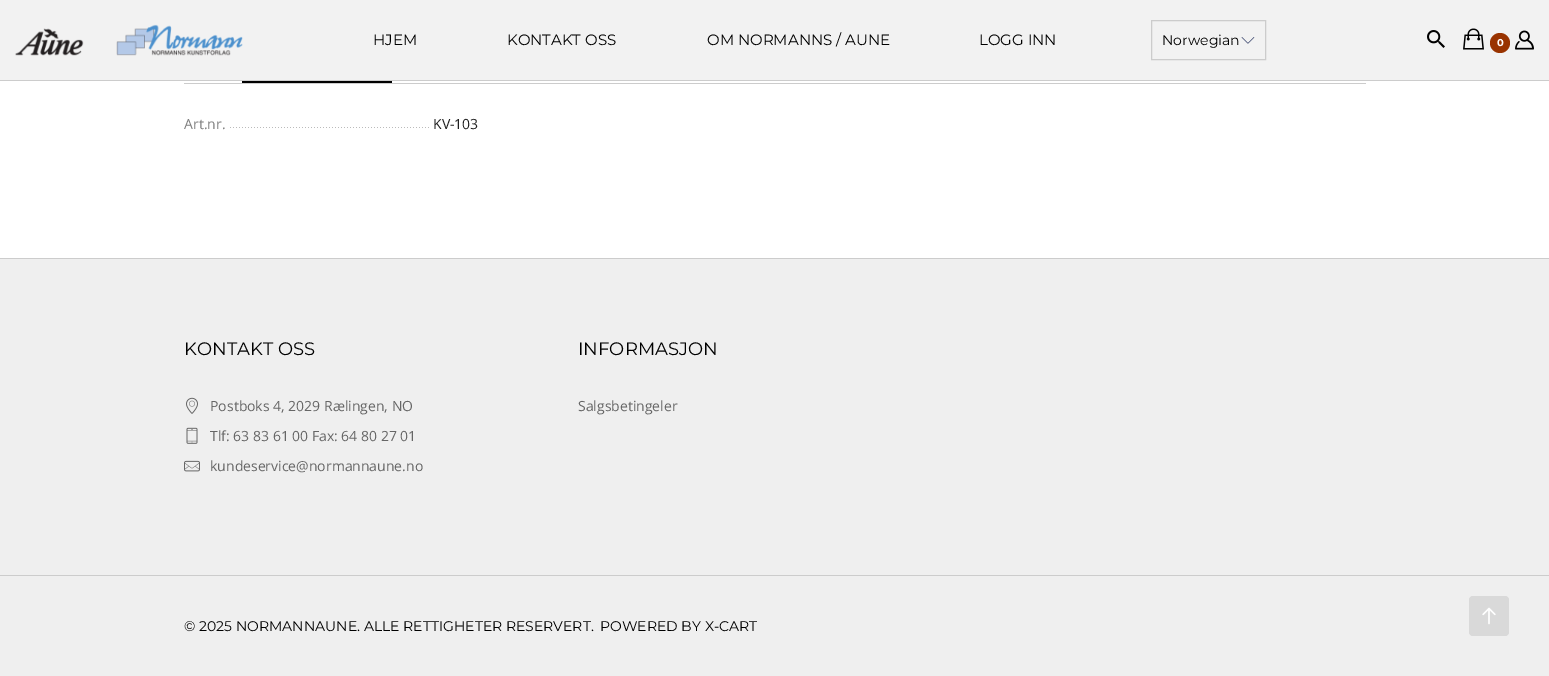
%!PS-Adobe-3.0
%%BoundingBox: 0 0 1549 676
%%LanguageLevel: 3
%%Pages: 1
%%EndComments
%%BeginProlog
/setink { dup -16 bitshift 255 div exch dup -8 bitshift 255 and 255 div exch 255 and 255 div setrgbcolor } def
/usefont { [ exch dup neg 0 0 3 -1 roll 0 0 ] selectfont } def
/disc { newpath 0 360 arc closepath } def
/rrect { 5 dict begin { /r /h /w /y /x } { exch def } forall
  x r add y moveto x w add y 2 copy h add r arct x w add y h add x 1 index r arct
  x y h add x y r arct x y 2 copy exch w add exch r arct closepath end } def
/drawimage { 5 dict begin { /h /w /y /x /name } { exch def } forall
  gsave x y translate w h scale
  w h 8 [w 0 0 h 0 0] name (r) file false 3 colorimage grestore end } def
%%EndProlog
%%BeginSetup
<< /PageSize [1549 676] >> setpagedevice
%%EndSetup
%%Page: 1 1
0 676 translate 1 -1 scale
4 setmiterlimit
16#FFFFFF setink
0 0 1549 676 rectfill
16#F2F2F2 setink
0 0 1549 80 rectfill
16#CCCCCC setink
0 80 1549 1 rectfill
(img1.raw) 15 24 228 32 drawimage
/Montserrat-Regular 15 usefont
16#000000 setink
[
    [(HJEM) 373 45]
    [(KONTAKT OSS) 507 45]
    [(OM NORMANNS / AUNE) 707 45]
    [(LOGG INN) 979 45]
] { aload pop moveto show } forall
(img2.raw) 1241 37 14 7 drawimage
16#CCCCCC setink
1151.5 20.5 114 39 rectstroke
/Montserrat-Regular 14 usefont
16#000000 setink
1162 45 moveto (Norwegian) show
(img3.raw) 1427 30 18 18 drawimage
(img4.raw) 1463 28 21 22 drawimage
16#993300 setink
1500 43 10 disc fill
/Montserrat-Bold 10 usefont
16#FFFFFF setink
1497 46 moveto (0) show
(img5.raw) 1515 30 19 20 drawimage
16#CCCCCC setink
184 83 1182 1 rectfill
16#000000 setink
242 81 150 2 rectfill
(img6.raw) 230 127 199 1 drawimage
/OpenSans-Regular 14 usefont
16#7E7E7E setink
184 129 moveto (Art.nr.) show
16#1F1F1F setink
433 129 moveto (KV-103) show
16#EFEFEF setink
0 259 1549 417 rectfill
16#D9D9D9 setink
1469 596 40 40 4 rrect fill
(img7.raw) 1482 607 14 18 drawimage
16#CCCCCC setink
0 258 1549 1 rectfill
/Montserrat-Regular 18 usefont
16#000000 setink
184 355 moveto (KONTAKT OSS) show
(img8.raw) 186 397 12 17 drawimage
/OpenSans-Regular 14 usefont
16#666666 setink
210 411 moveto (Postboks 4, 2029 Rælingen, NO) show
(img9.raw) 186 427 12 17 drawimage
210 441 moveto (Tlf: 63 83 61 00 Fax: 64 80 27 01) show
(img10.raw) 184 460 16 12 drawimage
210 471 moveto (kundeservice@normannaune.no) show
/Montserrat-Regular 18 usefont
16#000000 setink
578 355 moveto (INFORMASJON) show
/OpenSans-Regular 14 usefont
16#666666 setink
578 411 moveto (Salgsbetingeler) show
16#CCCCCC setink
0 575 1549 1 rectfill
/Montserrat-Regular 14 usefont
16#000000 setink
184 631 moveto (© 2025 NORMANNAUNE. ALLE RETTIGHETER RESERVERT.) show
600 631 moveto (POWERED BY X-CART) show
showpage
%%EOF
